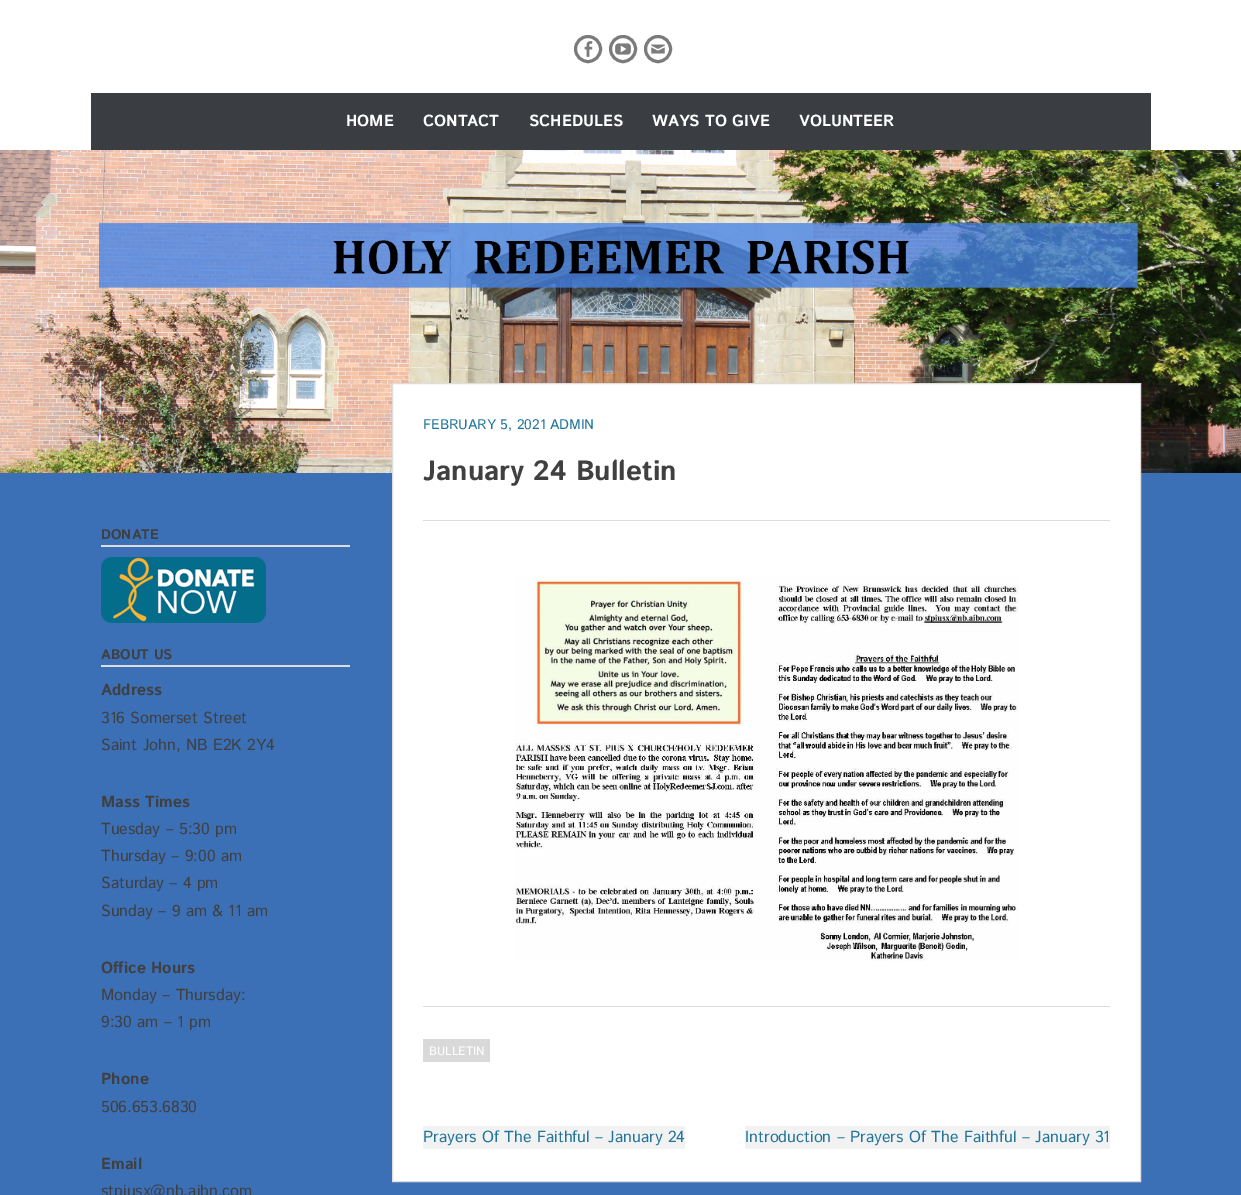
%!PS-Adobe-3.0
%%BoundingBox: 0 0 1241 1195
%%LanguageLevel: 3
%%Pages: 1
%%EndComments
%%BeginProlog
/setink { dup -16 bitshift 255 div exch dup -8 bitshift 255 and 255 div exch 255 and 255 div setrgbcolor } def
/usefont { [ exch dup neg 0 0 3 -1 roll 0 0 ] selectfont } def
/disc { newpath 0 360 arc closepath } def
/drawimage { 5 dict begin { /h /w /y /x /name } { exch def } forall
  gsave x y translate w h scale
  w h 8 [w 0 0 h 0 0] name (r) file false 3 colorimage grestore end } def
%%EndProlog
%%BeginSetup
<< /PageSize [1241 1195] >> setpagedevice
%%EndSetup
%%Page: 1 1
0 1195 translate 1 -1 scale
4 setmiterlimit
16#3B6FB6 setink
0 0 1241 1195 rectfill
16#FFFFFF setink
0 0 1241 150 rectfill
16#7B7B7B setink
3 setlinewidth
588 49 12.5 disc stroke
(img1.raw) 584 41 9 16 drawimage
623 49 12.5 disc stroke
(img2.raw) 615 43 16 12 drawimage
658 49 12.5 disc stroke
(img3.raw) 651 44 14 10 drawimage
16#3A3D41 setink
91 93 1060 57 rectfill
/IstokWeb-Bold 16 usefont
16#FFFFFF setink
[
    [(HOME) 346 126]
    [(CONTACT) 423 126]
    [(SCHEDULES) 529 126]
    [(WAYS TO GIVE) 652 126]
    [(VOLUNTEER) 799 126]
] { aload pop moveto show } forall
(img4.raw) 0 150 1241 323 drawimage
16#DDDDDD setink
101 545 249 2 rectfill
/IstokWeb-Bold 14 usefont
16#404040 setink
101 539 moveto (DONATE) show
(img5.raw) 101 557 165 66 drawimage
16#DDDDDD setink
101 665 249 2 rectfill
16#404040 setink
101 659 moveto (ABOUT US) show
/IstokWeb-Bold 16 usefont
101 695 moveto (Address) show
/IstokWeb-Regular 16 usefont
101 723 moveto (316 Somerset Street) show
101 750 moveto (Saint John, NB E2K 2Y4) show
/IstokWeb-Bold 16 usefont
101 807 moveto (Mass Times) show
/IstokWeb-Regular 16 usefont
[
    [(Tuesday – 5:30 pm) 101 834]
    [(Thursday – 9:00 am) 101 861]
    [(Saturday – 4 pm) 101 888]
    [(Sunday – 9 am & 11 am) 101 916]
] { aload pop moveto show } forall
/IstokWeb-Bold 16 usefont
101 973 moveto (Office Hours) show
/IstokWeb-Regular 16 usefont
101 1000 moveto (Monday – Thursday:) show
101 1027 moveto (9:30 am – 1 pm) show
/IstokWeb-Bold 16 usefont
101 1084 moveto (Phone) show
/IstokWeb-Regular 16 usefont
101 1112 moveto (506.653.6830) show
/IstokWeb-Bold 16 usefont
101 1169 moveto (Email) show
/IstokWeb-Regular 16 usefont
101 1196 moveto (stpiusx@nb.aibn.com) show
16#FFFFFF setink
392.5 383.5 moveto 1140.5 383.5 lineto 1140.5 1181.5 lineto 392.5 1181.5 lineto closepath gsave fill grestore
16#DDDDDD setink
1 setlinewidth
stroke
/IstokWeb-Regular 14 usefont
16#21759B setink
423 429 moveto (FEBRUARY 5, 2021 ADMIN) show
/IstokWeb-Bold 28 usefont
16#404040 setink
423 480 moveto (January 24 Bulletin) show
16#DDDDDD setink
423 520 687 1 rectfill
423 1006 687 1 rectfill
(img6.raw) 515 576 504 385 drawimage
16#D9D9D9 setink
423 1039 67 23 rectfill
/IstokWeb-Regular 12 usefont
16#FFFFFF setink
429 1055 moveto (BULLETIN) show
16#F2F2F2 setink
423 1126 262 23 rectfill
/IstokWeb-Regular 16 usefont
16#21759B setink
423 1142 moveto (Prayers Of The Faithful – January 24) show
16#F2F2F2 setink
745 1126 365 23 rectfill
16#21759B setink
745 1142 moveto (Introduction – Prayers Of The Faithful – January 31) show
showpage
%%EOF
